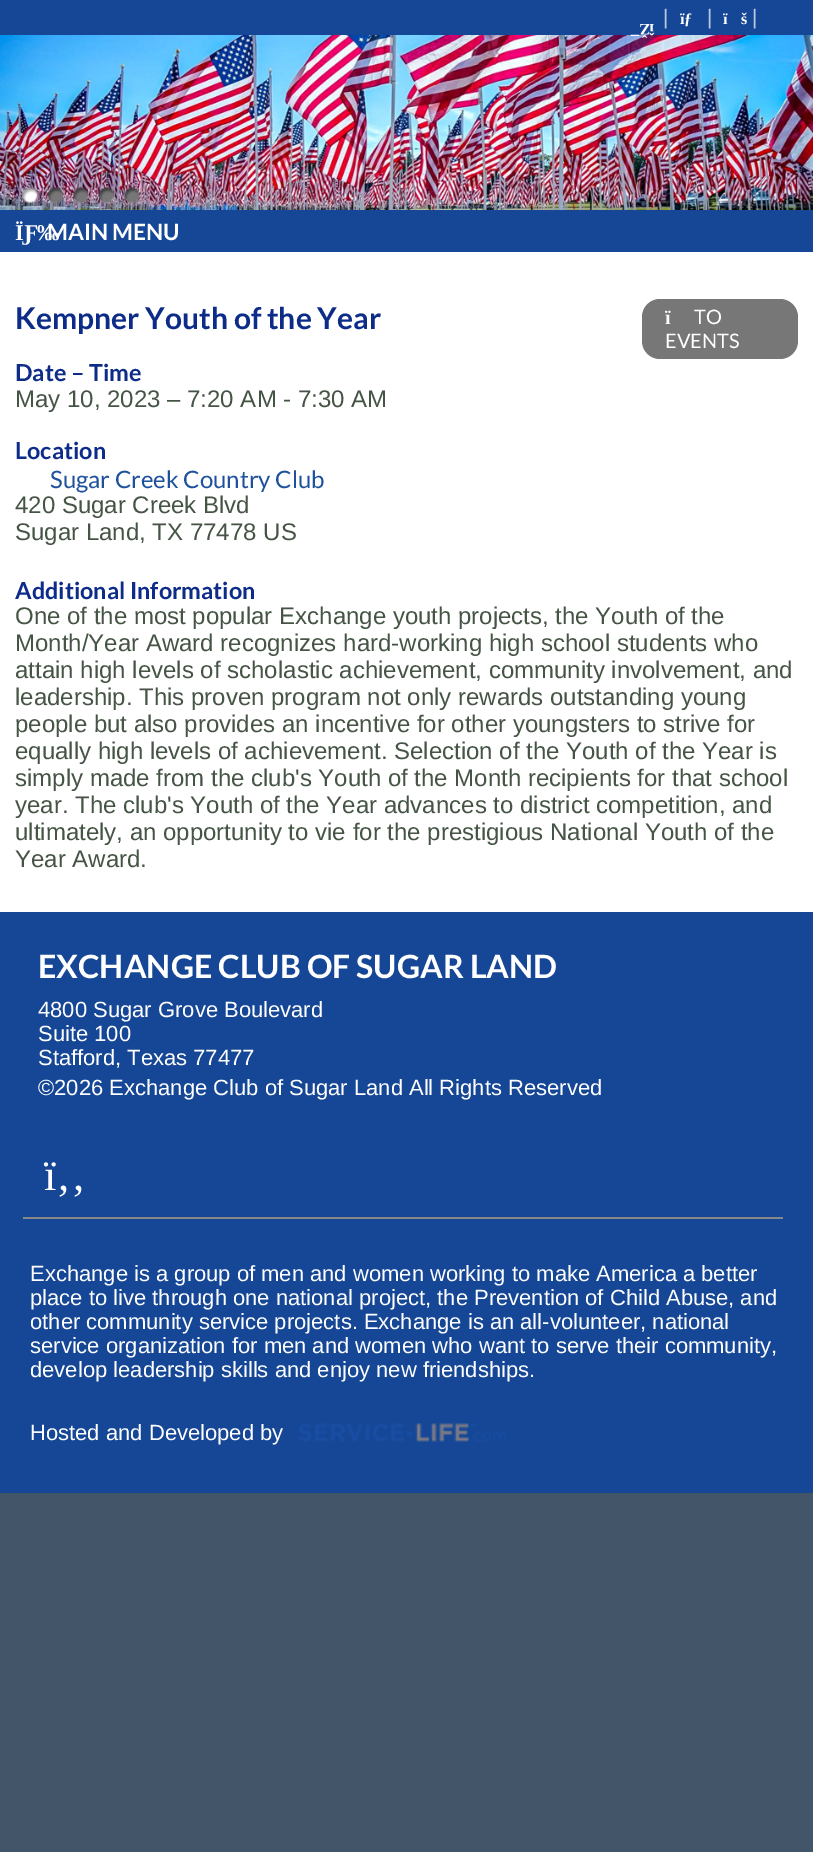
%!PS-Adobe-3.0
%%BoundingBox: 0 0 813 1852
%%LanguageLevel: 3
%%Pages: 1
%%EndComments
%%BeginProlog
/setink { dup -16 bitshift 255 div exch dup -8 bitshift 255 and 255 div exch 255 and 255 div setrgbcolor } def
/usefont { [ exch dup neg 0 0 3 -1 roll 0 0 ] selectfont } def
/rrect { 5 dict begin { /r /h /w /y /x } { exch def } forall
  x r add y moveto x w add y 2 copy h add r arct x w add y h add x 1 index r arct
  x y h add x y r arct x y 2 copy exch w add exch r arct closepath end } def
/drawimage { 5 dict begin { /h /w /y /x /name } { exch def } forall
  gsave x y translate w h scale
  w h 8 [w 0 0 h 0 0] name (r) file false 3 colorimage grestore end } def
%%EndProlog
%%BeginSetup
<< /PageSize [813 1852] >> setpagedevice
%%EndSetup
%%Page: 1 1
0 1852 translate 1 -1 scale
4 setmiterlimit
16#435568 setink
0 0 813 1852 rectfill
16#164796 setink
0 0 813 35 rectfill
/LiberationSans-Regular 21 usefont
16#B9C8E0 setink
663 24 moveto (|) show
/LiberationSerif-Bold 16 usefont
16#FFFFFF setink
680 24 moveto (ïƒ) show
/LiberationSans-Regular 21 usefont
16#B9C8E0 setink
707 24 moveto (|) show
/LiberationSerif-Bold 16 usefont
16#FFFFFF setink
723 24 moveto (ï) show
741 24 moveto (š) show
/LiberationSans-Regular 21 usefont
16#B9C8E0 setink
752 24 moveto (|) show
(img1.raw) 0 35 813 175 drawimage
/LiberationSerif-Bold 16 usefont
16#FFFFFF setink
gsave 654 24 translate 180 rotate 0 0 moveto (îŽ¯) show grestore
(img2.raw) 22 187 16 16 drawimage
(img3.raw) 48 187 15 16 drawimage
(img4.raw) 73 187 16 16 drawimage
(img5.raw) 99 187 15 16 drawimage
(img6.raw) 124 187 16 16 drawimage
16#164796 setink
0 210 813 42 rectfill
/LiberationSerif-Bold 22.5 usefont
16#FFFFFF setink
15 240 moveto (ÏƑ‰) show
/Lato-Bold 22.5 usefont
47 240 moveto (MAIN MENU) show
0 252 813 660 rectfill
/Lato-Bold 30 usefont
16#0D2C89 setink
15 329 moveto (Kempner Youth of the Year) show
16#777777 setink
642 299 156 60 18 rrect fill
/LiberationSerif-Bold 20 usefont
16#FFFFFF setink
665 324 moveto (ï) show
/Lato-Regular 20 usefont
694 324 moveto (TO) show
665 348 moveto (EVENTS) show
/Lato-Bold 23.4 usefont
16#0D2C89 setink
15 381 moveto (Date – Time) show
/LiberationSans-Regular 24 usefont
16#455445 setink
15 407 moveto (May 10, 2023 – 7:20 AM - 7:30 AM) show
/Lato-Bold 23.4 usefont
16#0D2C89 setink
15 459 moveto (Location) show
/Lato-Regular 24 usefont
16#1D519D setink
50 488 moveto (Sugar Creek Country Club) show
/LiberationSans-Regular 24 usefont
16#455445 setink
15 513 moveto (420 Sugar Creek Blvd) show
15 540 moveto (Sugar Land, TX 77478 US) show
/Lato-Bold 23.4 usefont
16#0D2C89 setink
15 599 moveto (Additional Information) show
/LiberationSans-Regular 24 usefont
16#455445 setink
[
    [(One of the most popular Exchange youth projects, the Youth of the) 15 624]
    [(Month/Year Award recognizes hard-working high school students who) 15 651]
    [(attain high levels of scholastic achievement, community involvement, and) 15 678]
    [(leadership. This proven program not only rewards outstanding young) 15 705]
    [(people but also provides an incentive for other youngsters to strive for) 15 732]
    [(equally high levels of achievement. Selection of the Youth of the Year is) 15 759]
    [(simply made from the club's Youth of the Month recipients for that school) 15 786]
    [(year. The club's Youth of the Year advances to district competition, and) 15 813]
    [(ultimately, an opportunity to vie for the prestigious National Youth of the) 15 840]
    [(Year Award.) 15 867]
] { aload pop moveto show } forall
16#164796 setink
0 912 813 581 rectfill
/Lato-Bold 32 usefont
16#FFFFFF setink
38 978 moveto (EXCHANGE CLUB OF SUGAR LAND) show
/LiberationSans-Regular 22 usefont
[
    [(4800 Sugar Grove Boulevard) 38 1017]
    [(Suite 100) 38 1041]
    [(Stafford, Texas 77477) 38 1065]
    [(©2026 Exchange Club of Sugar Land All Rights Reserved) 38 1095]
] { aload pop moveto show } forall
/LiberationSerif-Regular 44 usefont
44 1190 moveto (ï‚‚) show
16#888888 setink
23 1217 760 2 rectfill
/LiberationSans-Regular 22 usefont
16#FFFFFF setink
[
    [(Exchange is a group of men and women working to make America a better) 30 1281]
    [(place to live through one national project, the Prevention of Child Abuse, and) 30 1305]
    [(other community service projects. Exchange is an all-volunteer, national) 30 1329]
    [(service organization for men and women who want to serve their community,) 30 1353]
    [(develop leadership skills and enjoy new friendships.) 30 1377]
    [(Hosted and Developed by) 30 1440]
] { aload pop moveto show } forall
(img7.raw) 298 1423 208 19 drawimage
showpage
%%EOF
